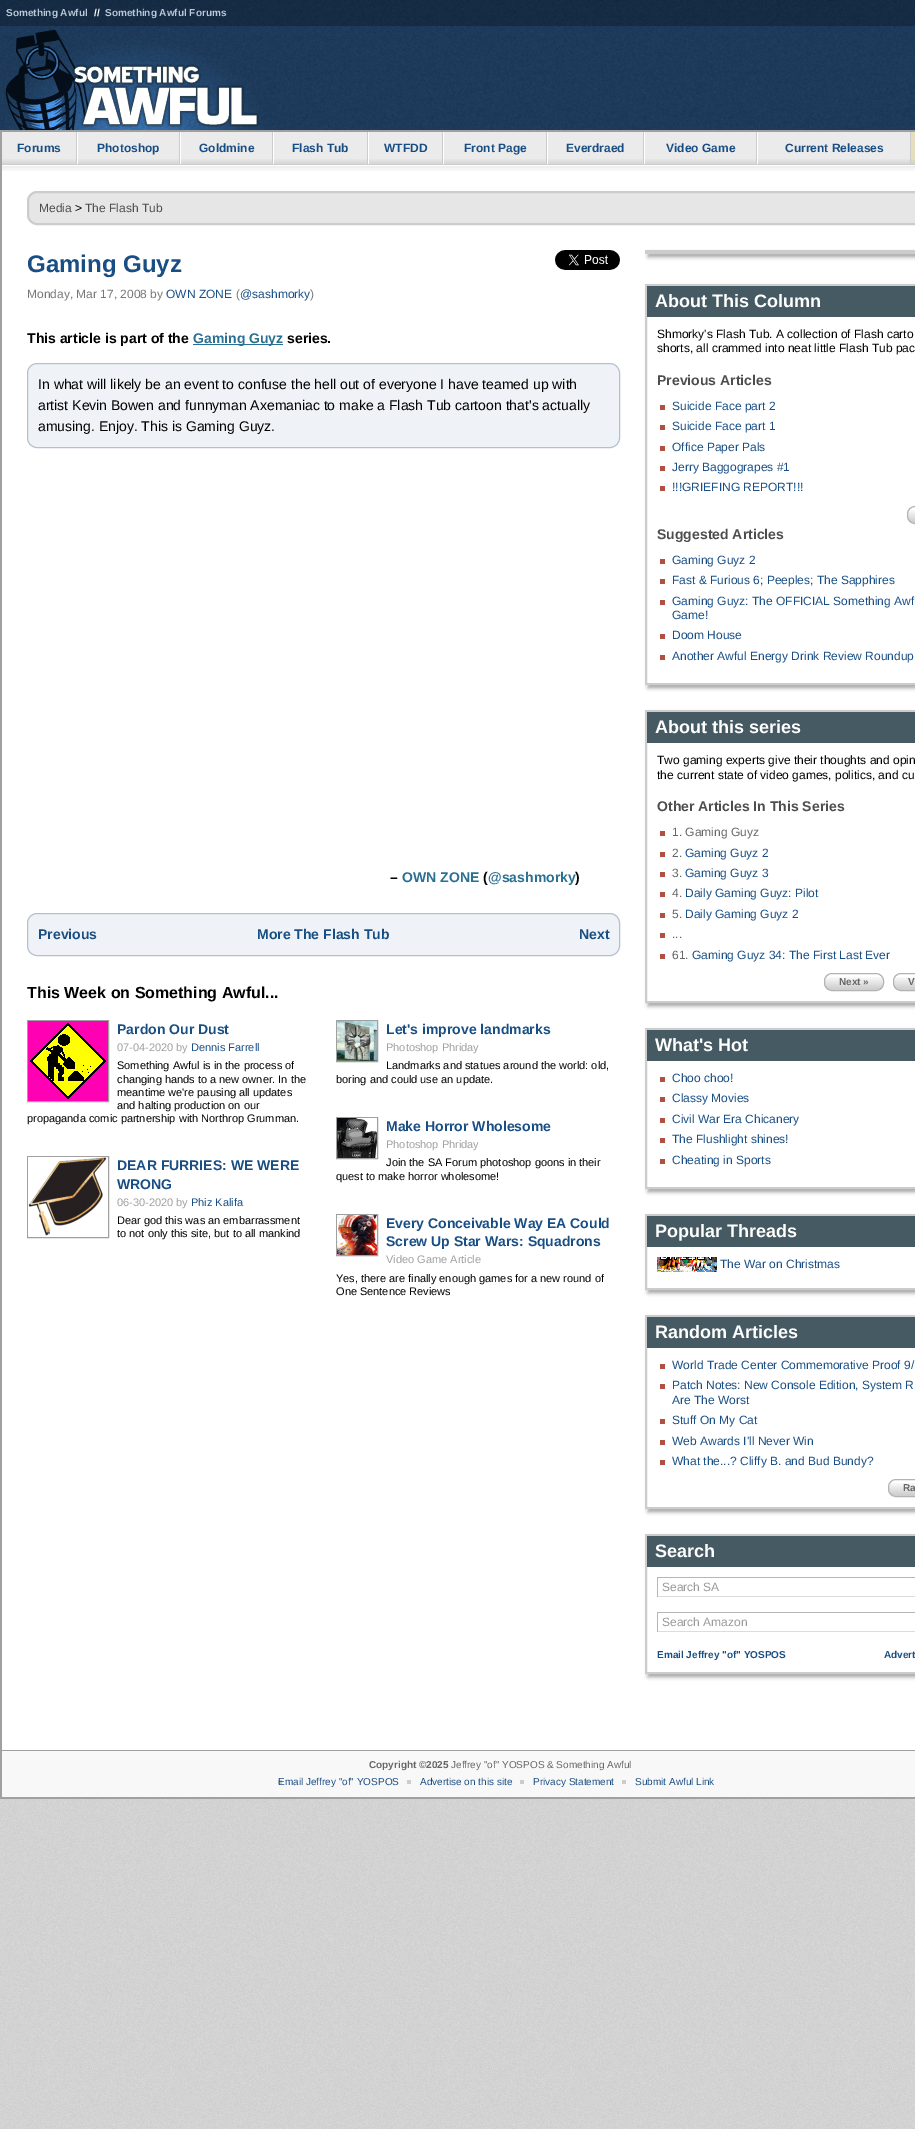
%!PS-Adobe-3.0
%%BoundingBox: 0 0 915 2129
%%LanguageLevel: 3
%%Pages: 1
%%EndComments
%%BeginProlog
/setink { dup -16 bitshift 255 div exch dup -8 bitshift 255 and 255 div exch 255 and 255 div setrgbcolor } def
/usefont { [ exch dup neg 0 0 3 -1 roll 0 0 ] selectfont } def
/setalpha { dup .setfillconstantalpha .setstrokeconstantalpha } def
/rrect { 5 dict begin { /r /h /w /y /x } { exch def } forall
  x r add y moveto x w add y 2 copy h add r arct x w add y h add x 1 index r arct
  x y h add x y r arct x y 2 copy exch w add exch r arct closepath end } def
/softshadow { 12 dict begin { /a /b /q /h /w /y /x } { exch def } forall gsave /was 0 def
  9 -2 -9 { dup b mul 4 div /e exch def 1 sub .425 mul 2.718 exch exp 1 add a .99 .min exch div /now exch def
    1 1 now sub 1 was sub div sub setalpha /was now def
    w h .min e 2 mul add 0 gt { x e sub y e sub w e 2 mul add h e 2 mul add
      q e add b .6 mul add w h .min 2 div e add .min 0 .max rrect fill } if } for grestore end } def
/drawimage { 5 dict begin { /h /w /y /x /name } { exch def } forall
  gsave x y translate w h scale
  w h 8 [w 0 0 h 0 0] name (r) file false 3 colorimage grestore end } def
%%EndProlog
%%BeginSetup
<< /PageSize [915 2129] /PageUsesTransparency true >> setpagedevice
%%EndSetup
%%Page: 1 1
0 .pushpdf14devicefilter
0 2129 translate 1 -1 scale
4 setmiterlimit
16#FFFFFF setink
0 0 915 2129 rectfill
(img1.raw) 0 1799 915 330 drawimage
(img2.raw) 0 0 915 130 drawimage
/LiberationSans-Bold 10 usefont
16#B7C7D6 setink
6 16 moveto (Something Awful) show
16#FFFFFF setink
94 16 moveto (//) show
16#B7C7D6 setink
105 16 moveto (Something Awful Forums) show
16#FFFFFF setink
74 66 183 59 rectfill
(img3.raw) 0 26 270 104 drawimage
[
    [0 130 915 2 16#A0A0A0]
    [0 130 2 1620 16#A0A0A0]
    [2 132 908 32 16#EBEBEB]
    [2 164 913 1 16#CCCCCC]
] { aload pop setink rectfill } forall
(img4.raw) 2 159 74 5 drawimage
/LiberationSans-Bold 12 usefont
16#194E84 setink
17 152 moveto (Forums) show
16#CCCCCC setink
76 132 1 32 rectfill
(img5.raw) 78 159 101 5 drawimage
16#FFFFFF setink
77 132 1 32 rectfill
16#194E84 setink
97 152 moveto (Photoshop) show
16#CCCCCC setink
179 132 1 32 rectfill
(img6.raw) 181 159 91 5 drawimage
16#FFFFFF setink
180 132 1 32 rectfill
16#194E84 setink
199 152 moveto (Goldmine) show
16#CCCCCC setink
272 132 1 32 rectfill
(img7.raw) 274 159 93 5 drawimage
16#FFFFFF setink
273 132 1 32 rectfill
16#194E84 setink
292 152 moveto (Flash Tub) show
16#CCCCCC setink
367 132 1 32 rectfill
(img8.raw) 369 159 73 5 drawimage
16#FFFFFF setink
368 132 1 32 rectfill
16#194E84 setink
384 152 moveto (WTFDD) show
16#CCCCCC setink
442 132 1 32 rectfill
(img9.raw) 444 159 102 5 drawimage
16#FFFFFF setink
443 132 1 32 rectfill
16#194E84 setink
464 152 moveto (Front Page) show
16#CCCCCC setink
546 132 1 32 rectfill
(img10.raw) 548 159 95 5 drawimage
16#FFFFFF setink
547 132 1 32 rectfill
16#194E84 setink
566 152 moveto (Everdraed) show
16#CCCCCC setink
643 132 1 32 rectfill
(img11.raw) 645 159 111 5 drawimage
16#FFFFFF setink
644 132 1 32 rectfill
16#194E84 setink
666 152 moveto (Video Game) show
16#CCCCCC setink
756 132 1 32 rectfill
(img12.raw) 758 159 152 5 drawimage
16#FFFFFF setink
757 132 1 32 rectfill
16#194E84 setink
785 152 moveto (Current Releases) show
16#E6DCBE setink
911 132 4 32 rectfill
16#CCCCCC setink
910 132 1 32 rectfill
(img13.raw) 911 159 4 5 drawimage
(img14.raw) 2 166 913 5 drawimage
16#E6E6E6 setink
28 192 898 32 9 rrect gsave fill grestore
16#CCCCCC setink
2 setlinewidth
stroke
/LiberationSans-Regular 12 usefont
16#4D4D4D setink
39 212 moveto (Media) show
16#000000 setink
75 212 moveto (>) show
16#4D4D4D setink
85 212 moveto (The Flash Tub) show
/LiberationSans-Bold 24 usefont
16#194E84 setink
27 272 moveto (Gaming Guyz) show
/LiberationSans-Regular 12 usefont
16#777777 setink
27 298 moveto (Monday, Mar 17, 2008 by) show
16#194E84 setink
166 298 moveto (OWN ZONE) show
16#777777 setink
236 298 moveto (\() show
16#194E84 setink
240 298 moveto (@sashmorky) show
16#777777 setink
310 298 moveto (\)) show
(img15.raw) 555 250 65 20 drawimage
/LiberationSans-Bold 14 usefont
16#000000 setink
27 343 moveto (This article is part of the) show
16#297093 setink
193 344 90 1 rectfill
193 343 moveto (Gaming Guyz) show
16#000000 setink
287 343 moveto (series.) show
16#EFF3F7 setink
27.5 363.5 592 84 9.5 rrect gsave fill grestore
16#B4C1CD setink
1 setlinewidth
stroke
/LiberationSans-Regular 14 usefont
16#000000 setink
[
    [(In what will likely be an event to confuse the hell out of everyone I have teamed up with) 38 389]
    [(artist Kevin Bowen and funnyman Axemaniac to make a Flash Tub cartoon that's actually) 38 410]
    [(amusing. Enjoy. This is Gaming Guyz.) 38 431]
] { aload pop moveto show } forall
/LiberationSans-Bold 14 usefont
390 882 moveto (–) show
16#297093 setink
402 882 moveto (OWN ZONE) show
16#000000 setink
483 882 moveto (\() show
16#297093 setink
488 882 moveto (@sashmorky) show
16#000000 setink
575 882 moveto (\)) show
16#EFF3F7 setink
27.5 913.5 592 42 9.5 rrect gsave fill grestore
16#B4C1CD setink
stroke
16#194E84 setink
[
    [(Previous) 38 939]
    [(More The Flash Tub) 257 939]
    [(Next) 579 939]
] { aload pop moveto show } forall
/LiberationSans-Bold 16 usefont
16#000000 setink
27 998 moveto (This Week on Something Awful...) show
16#A0A0A0 setink
27.5 1020.5 81 81 rectstroke
(img16.raw) 28 1021 80 80 drawimage
/LiberationSans-Bold 14 usefont
16#194E84 setink
117 1034 moveto (Pardon Our Dust) show
/LiberationSans-Regular 11 usefont
16#A0A0A0 setink
117 1051 moveto (07-04-2020 by) show
16#194E84 setink
191 1051 moveto (Dennis Farrell) show
16#000000 setink
[
    [(Something Awful is in the process of) 117 1069]
    [(changing hands to a new owner. In the) 117 1083]
    [(meantime we're pausing all updates) 117 1096]
    [(and halting production on our) 117 1109]
    [(propaganda comic partnership with Northrop Grumman.) 27 1122]
] { aload pop moveto show } forall
16#A0A0A0 setink
27.5 1156.5 81 81 rectstroke
(img17.raw) 28 1157 79 79 drawimage
/LiberationSans-Bold 14 usefont
16#194E84 setink
117 1170 moveto (DEAR FURRIES: WE WERE) show
117 1189 moveto (WRONG) show
/LiberationSans-Regular 11 usefont
16#A0A0A0 setink
117 1206 moveto (06-30-2020 by) show
16#194E84 setink
191 1206 moveto (Phiz Kalifa) show
16#000000 setink
117 1224 moveto (Dear god this was an embarrassment) show
117 1237 moveto (to not only this site, but to all mankind) show
16#A0A0A0 setink
336.5 1020.5 41 41 rectstroke
(img18.raw) 337 1021 40 40 drawimage
/LiberationSans-Bold 14 usefont
16#194E84 setink
386 1034 moveto (Let's improve landmarks) show
/LiberationSans-Regular 11 usefont
16#A0A0A0 setink
386 1051 moveto (Photoshop Phriday) show
16#000000 setink
386 1069 moveto (Landmarks and statues around the world: old,) show
336 1083 moveto (boring and could use an update.) show
16#A0A0A0 setink
336.5 1117.5 41 41 rectstroke
(img19.raw) 337 1118 40 40 drawimage
/LiberationSans-Bold 14 usefont
16#194E84 setink
386 1131 moveto (Make Horror Wholesome) show
/LiberationSans-Regular 11 usefont
16#A0A0A0 setink
386 1148 moveto (Photoshop Phriday) show
16#000000 setink
386 1166 moveto (Join the SA Forum photoshop goons in their) show
336 1180 moveto (quest to make horror wholesome!) show
16#A0A0A0 setink
336.5 1214.5 41 41 rectstroke
(img20.raw) 337 1215 40 40 drawimage
/LiberationSans-Bold 14 usefont
16#194E84 setink
386 1228 moveto (Every Conceivable Way EA Could) show
386 1246 moveto (Screw Up Star Wars: Squadrons) show
/LiberationSans-Regular 11 usefont
16#A0A0A0 setink
386 1263 moveto (Video Game Article) show
16#000000 setink
336 1282 moveto (Yes, there are finally enough games for a new round of) show
336 1295 moveto (One Sentence Reviews) show
16#A0A0A0 setink
648 253 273 4 0 2 1 softshadow
16#CCCCCC setink
645 250 270 4 rectfill
gsave
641 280 moveto 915 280 lineto 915 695 lineto 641 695 lineto closepath 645 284 moveto 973 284 lineto 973 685 lineto 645 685 lineto closepath eoclip newpath
16#A0A0A0 setink
648 287 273 401 0 2 1 softshadow
grestore
2 setlinewidth
646 285 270 399 rectstroke
16#455A63 setink
647 286 268 31 rectfill
/LiberationSans-Bold 18 usefont
16#FFFFFF setink
655 307 moveto (About This Column) show
/LiberationSans-Regular 12 usefont
16#000000 setink
657 338 moveto (Shmorky's Flash Tub. A collection of Flash carto) show
657 352 moveto (shorts, all crammed into neat little Flash Tub pac) show
/LiberationSans-Bold 14 usefont
16#4D4D4D setink
657 385 moveto (Previous Articles) show
16#B05042 setink
660 405 5 5 rectfill
/LiberationSans-Regular 12 usefont
16#194E84 setink
672 410 moveto (Suicide Face part 2) show
16#B05042 setink
660 425 5 5 rectfill
16#194E84 setink
672 430 moveto (Suicide Face part 1) show
16#B05042 setink
660 446 5 5 rectfill
16#194E84 setink
672 451 moveto (Office Paper Pals) show
16#B05042 setink
660 466 5 5 rectfill
16#194E84 setink
672 471 moveto (Jerry Baggograpes #1) show
16#B05042 setink
660 486 5 5 rectfill
16#194E84 setink
672 491 moveto (!!!GRIEFING REPORT!!!) show
(img21.raw) 907 510 8 13 drawimage
16#B3B3B3 setink
1 setlinewidth
907.5 506.5 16 17 7.5 rrect stroke
/LiberationSans-Bold 14 usefont
16#4D4D4D setink
657 539 moveto (Suggested Articles) show
16#B05042 setink
660 559 5 5 rectfill
/LiberationSans-Regular 12 usefont
16#194E84 setink
672 564 moveto (Gaming Guyz 2) show
16#B05042 setink
660 579 5 5 rectfill
16#194E84 setink
672 584 moveto (Fast & Furious 6; Peeples; The Sapphires) show
16#B05042 setink
660 600 5 5 rectfill
16#194E84 setink
672 605 moveto (Gaming Guyz: The OFFICIAL Something Awf) show
672 619 moveto (Game!) show
16#B05042 setink
660 634 5 5 rectfill
16#194E84 setink
672 639 moveto (Doom House) show
16#B05042 setink
660 655 5 5 rectfill
16#194E84 setink
672 660 moveto (Another Awful Energy Drink Review Roundup) show
gsave
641 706 moveto 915 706 lineto 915 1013 lineto 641 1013 lineto closepath 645 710 moveto 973 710 lineto 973 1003 lineto 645 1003 lineto closepath eoclip newpath
16#A0A0A0 setink
648 713 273 293 0 2 1 softshadow
grestore
16#CCCCCC setink
2 setlinewidth
646 711 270 291 rectstroke
16#455A63 setink
647 712 268 31 rectfill
/LiberationSans-Bold 18 usefont
16#FFFFFF setink
655 733 moveto (About this series) show
/LiberationSans-Regular 12 usefont
16#000000 setink
657 764 moveto (Two gaming experts give their thoughts and opin) show
657 779 moveto (the current state of video games, politics, and cu) show
/LiberationSans-Bold 14 usefont
16#4D4D4D setink
657 811 moveto (Other Articles In This Series) show
16#B05042 setink
660 831 5 5 rectfill
/LiberationSans-Regular 12 usefont
16#666666 setink
672 836 moveto (1. Gaming Guyz) show
16#B05042 setink
660 852 5 5 rectfill
16#666666 setink
672 857 moveto (2.) show
16#194E84 setink
685 857 moveto (Gaming Guyz 2) show
16#B05042 setink
660 872 5 5 rectfill
16#666666 setink
672 877 moveto (3.) show
16#194E84 setink
685 877 moveto (Gaming Guyz 3) show
16#B05042 setink
660 892 5 5 rectfill
16#666666 setink
672 897 moveto (4.) show
16#194E84 setink
685 897 moveto (Daily Gaming Guyz: Pilot) show
16#B05042 setink
660 913 5 5 rectfill
16#666666 setink
672 918 moveto (5.) show
16#194E84 setink
685 918 moveto (Daily Gaming Guyz 2) show
16#B05042 setink
660 933 5 5 rectfill
16#666666 setink
672 938 moveto (...) show
16#B05042 setink
660 954 5 5 rectfill
16#666666 setink
672 959 moveto (61.) show
16#194E84 setink
692 959 moveto (Gaming Guyz 34: The First Last Ever) show
(img22.raw) 824 977 60 13 drawimage
16#B3B3B3 setink
1 setlinewidth
824.5 973.5 59 17 7.5 rrect stroke
/LiberationSans-Bold 10 usefont
16#666666 setink
839 985 moveto (Next ») show
(img23.raw) 893 977 22 13 drawimage
16#B3B3B3 setink
893.5 973.5 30 17 7.5 rrect stroke
16#666666 setink
908 985 moveto (V) show
gsave
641 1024 moveto 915 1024 lineto 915 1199 lineto 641 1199 lineto closepath 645 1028 moveto 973 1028 lineto 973 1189 lineto 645 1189 lineto closepath eoclip newpath
16#A0A0A0 setink
648 1031 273 161 0 2 1 softshadow
grestore
16#CCCCCC setink
2 setlinewidth
646 1029 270 159 rectstroke
16#455A63 setink
647 1030 268 31 rectfill
/LiberationSans-Bold 18 usefont
16#FFFFFF setink
655 1051 moveto (What's Hot) show
16#B05042 setink
660 1077 5 5 rectfill
/LiberationSans-Regular 12 usefont
16#194E84 setink
672 1082 moveto (Choo choo!) show
16#B05042 setink
660 1097 5 5 rectfill
16#194E84 setink
672 1102 moveto (Classy Movies) show
16#B05042 setink
660 1118 5 5 rectfill
16#194E84 setink
672 1123 moveto (Civil War Era Chicanery) show
16#B05042 setink
660 1138 5 5 rectfill
16#194E84 setink
672 1143 moveto (The Flushlight shines!) show
16#B05042 setink
660 1159 5 5 rectfill
16#194E84 setink
672 1164 moveto (Cheating in Sports) show
gsave
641 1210 moveto 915 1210 lineto 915 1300 lineto 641 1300 lineto closepath 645 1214 moveto 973 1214 lineto 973 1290 lineto 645 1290 lineto closepath eoclip newpath
16#A0A0A0 setink
648 1217 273 76 0 2 1 softshadow
grestore
16#CCCCCC setink
646 1215 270 74 rectstroke
16#455A63 setink
647 1216 268 31 rectfill
/LiberationSans-Bold 18 usefont
16#FFFFFF setink
655 1237 moveto (Popular Threads) show
(img24.raw) 657 1257 60 15 drawimage
/LiberationSans-Regular 12 usefont
16#194E84 setink
720 1268 moveto (The War on Christmas) show
gsave
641 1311 moveto 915 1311 lineto 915 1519 lineto 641 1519 lineto closepath 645 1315 moveto 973 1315 lineto 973 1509 lineto 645 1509 lineto closepath eoclip newpath
16#A0A0A0 setink
648 1318 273 194 0 2 1 softshadow
grestore
16#CCCCCC setink
646 1316 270 192 rectstroke
16#455A63 setink
647 1317 268 31 rectfill
/LiberationSans-Bold 18 usefont
16#FFFFFF setink
655 1338 moveto (Random Articles) show
16#B05042 setink
660 1364 5 5 rectfill
/LiberationSans-Regular 12 usefont
16#194E84 setink
672 1369 moveto (World Trade Center Commemorative Proof 9/) show
16#B05042 setink
660 1384 5 5 rectfill
16#194E84 setink
672 1389 moveto (Patch Notes: New Console Edition, System R) show
672 1404 moveto (Are The Worst) show
16#B05042 setink
660 1419 5 5 rectfill
16#194E84 setink
672 1424 moveto (Stuff On My Cat) show
16#B05042 setink
660 1440 5 5 rectfill
16#194E84 setink
672 1445 moveto (Web Awards I'll Never Win) show
16#B05042 setink
660 1460 5 5 rectfill
16#194E84 setink
672 1465 moveto (What the...? Cliffy B. and Bud Bundy?) show
(img25.raw) 888 1483 27 13 drawimage
16#B3B3B3 setink
1 setlinewidth
888.5 1479.5 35 17 7.5 rrect stroke
/LiberationSans-Bold 10 usefont
16#666666 setink
903 1491 moveto (Ra) show
gsave
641 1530 moveto 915 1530 lineto 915 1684 lineto 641 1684 lineto closepath 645 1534 moveto 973 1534 lineto 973 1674 lineto 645 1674 lineto closepath eoclip newpath
16#A0A0A0 setink
648 1537 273 140 0 2 1 softshadow
grestore
16#CCCCCC setink
2 setlinewidth
646 1535 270 138 rectstroke
16#455A63 setink
647 1536 268 31 rectfill
/LiberationSans-Bold 18 usefont
16#FFFFFF setink
655 1557 moveto (Search) show
[
    [657 1577 258 1 16#B6B6B6]
    [657 1596 258 1 16#DCDCDC]
    [657 1577 1 20 16#B6B6B6]
] { aload pop setink rectfill } forall
/LiberationSans-Regular 12 usefont
16#999999 setink
662 1591 moveto (Search SA) show
[
    [657 1612 258 1 16#B6B6B6]
    [657 1631 258 1 16#DCDCDC]
    [657 1612 1 20 16#B6B6B6]
] { aload pop setink rectfill } forall
16#999999 setink
662 1626 moveto (Search Amazon) show
/LiberationSans-Bold 10 usefont
16#194E84 setink
657 1658 moveto (Email Jeffrey "of" YOSPOS) show
884 1658 moveto (Advert) show
[
    [0 1750 915 1 16#A0A0A0]
    [0 1797 915 2 16#A0A0A0]
    [0 1750 2 49 16#A0A0A0]
    [2 1751 913 46 16#F8F8F8]
] { aload pop setink rectfill } forall
16#666666 setink
369 1768 moveto (Copyright ©2025) show
/LiberationSans-Regular 10 usefont
451 1768 moveto (Jeffrey "of" YOSPOS & Something Awful) show
16#CCCCCC setink
278 1780 4 4 rectfill
16#194E84 setink
278 1785 moveto (Email Jeffrey "of" YOSPOS) show
420 1785 moveto (Advertise on this site) show
16#CCCCCC setink
407 1780 4 4 rectfill
16#194E84 setink
533 1785 moveto (Privacy Statement) show
16#CCCCCC setink
520 1780 4 4 rectfill
16#194E84 setink
635 1785 moveto (Submit Awful Link) show
16#CCCCCC setink
622 1780 4 4 rectfill
.poppdf14devicefilter showpage
%%EOF
